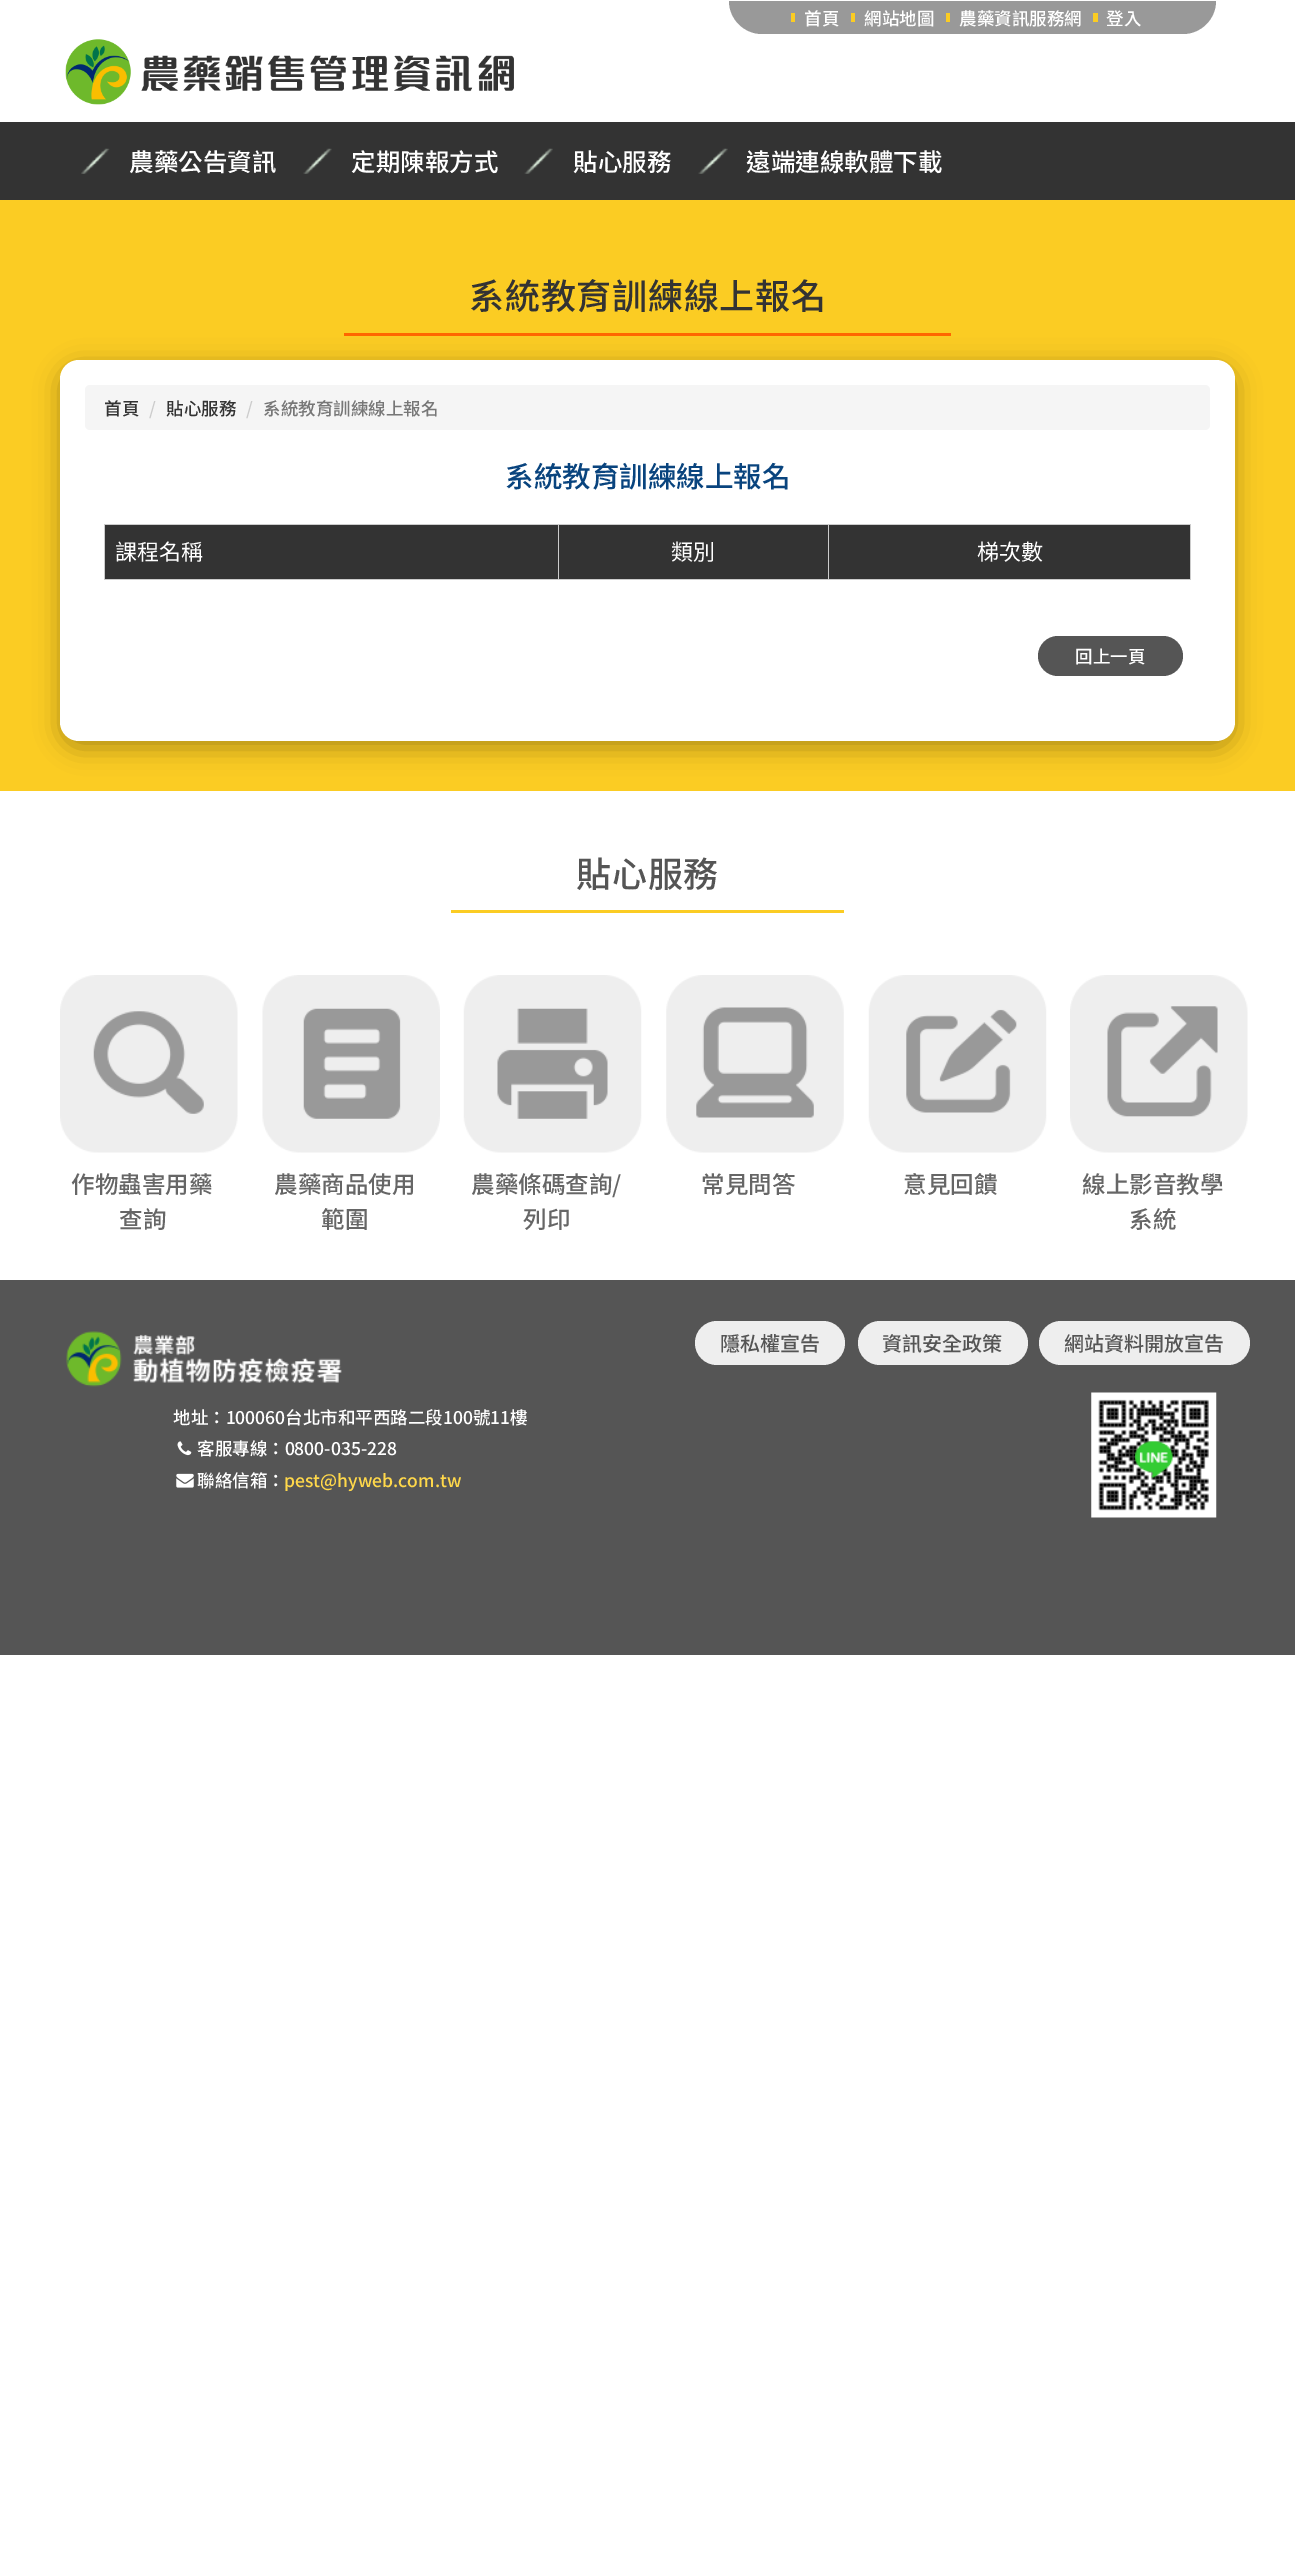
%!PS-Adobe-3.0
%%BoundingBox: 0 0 1295 2571
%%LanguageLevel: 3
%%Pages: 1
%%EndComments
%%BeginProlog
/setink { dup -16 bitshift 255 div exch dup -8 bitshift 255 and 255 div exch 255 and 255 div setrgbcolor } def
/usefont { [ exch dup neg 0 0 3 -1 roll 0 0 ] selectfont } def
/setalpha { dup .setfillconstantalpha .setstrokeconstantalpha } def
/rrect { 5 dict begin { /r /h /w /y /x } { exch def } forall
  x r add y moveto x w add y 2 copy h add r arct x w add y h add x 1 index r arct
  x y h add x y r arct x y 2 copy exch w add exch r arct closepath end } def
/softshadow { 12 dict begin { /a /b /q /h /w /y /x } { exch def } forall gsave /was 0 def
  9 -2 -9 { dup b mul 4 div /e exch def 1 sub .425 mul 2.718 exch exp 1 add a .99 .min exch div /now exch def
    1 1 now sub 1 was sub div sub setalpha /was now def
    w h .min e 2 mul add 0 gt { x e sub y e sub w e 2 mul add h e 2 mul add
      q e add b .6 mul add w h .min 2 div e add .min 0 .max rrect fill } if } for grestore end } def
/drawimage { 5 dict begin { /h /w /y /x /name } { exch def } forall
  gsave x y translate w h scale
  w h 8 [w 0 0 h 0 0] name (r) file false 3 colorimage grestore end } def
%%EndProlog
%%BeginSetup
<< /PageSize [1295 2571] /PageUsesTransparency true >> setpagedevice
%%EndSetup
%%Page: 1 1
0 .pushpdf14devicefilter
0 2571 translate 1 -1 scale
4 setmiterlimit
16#FFFFFF setink
0 0 1295 2571 rectfill
16#333333 setink
0 122 1295 78 rectfill
16#999999 setink
729 1 moveto 1216 1 lineto 1216 19 1201 34 1183 34 curveto 762 34 lineto 744 34 729 19 729 1 curveto closepath fill
16#FBCC23 setink
791 13 4 9 rectfill
/NotoSansTC-Medium 17.5 usefont
16#FFFFFF setink
804 25 moveto (首頁) show
16#FBCC23 setink
851 13 4 9 rectfill
16#FFFFFF setink
864 25 moveto (網站地圖) show
16#FBCC23 setink
946 13 4 9 rectfill
16#FFFFFF setink
959 25 moveto (農藥資訊服務網) show
16#FBCC23 setink
1093 13 5 9 rectfill
16#FFFFFF setink
1106 25 moveto (登入) show
(img1.raw) 65 39 449 66 drawimage
(img2.raw) 81 148 29 26 drawimage
/NotoSansTC-Medium 24.5 usefont
129 171 moveto (農藥公告資訊) show
(img3.raw) 303 148 29 26 drawimage
351 171 moveto (定期陳報方式) show
(img4.raw) 524 148 29 26 drawimage
573 171 moveto (貼心服務) show
(img5.raw) 698 148 30 26 drawimage
746 171 moveto (遠端連線軟體下載) show
16#FBCC23 setink
0 200 1295 591 rectfill
16#FF6600 setink
344 333 607 3 rectfill
/NotoSansTC-Medium 35 usefont
16#333333 setink
469 309 moveto 0.75 0 (系統教育訓練線上報名) ashow
16#000000 setink
60 366 1175 382 19 12.5 0.3 softshadow
16#FFFFFF setink
60 360 1175 381 19 rrect fill
16#F5F5F5 setink
85 385 1125 45 5 rrect fill
/NotoSansTC-Medium 17.5 usefont
16#333333 setink
104 415 moveto (首頁) show
16#CCCCCC setink
149 415 moveto (/) show
16#333333 setink
166 415 moveto (貼心服務) show
16#CCCCCC setink
246 415 moveto (/) show
16#777777 setink
263 415 moveto (系統教育訓練線上報名) show
/NotoSansTC-Medium 28.5 usefont
16#09447E setink
505 487 moveto (系統教育訓練線上報名) show
[
    [104 524 1087 1 16#CCCCCC]
    [1190 524 1 56 16#CCCCCC]
    [104 579 1087 1 16#CCCCCC]
    [104 524 1 56 16#CCCCCC]
    [105 525 453 54 16#333333]
] { aload pop setink rectfill } forall
/NotoSansTC-Regular 22 usefont
16#FFFFFF setink
115 560 moveto (課程名稱) show
16#333333 setink
559 525 269 54 rectfill
16#CCCCCC setink
558 524 1 56 rectfill
16#FFFFFF setink
671 560 moveto (類別) show
16#333333 setink
829 525 361 54 rectfill
16#CCCCCC setink
828 524 1 56 rectfill
16#FFFFFF setink
977 560 moveto (梯次數) show
16#555555 setink
1038 636 145 40 20 rrect fill
/NotoSansTC-Medium 17.5 usefont
16#FFFFFF setink
1075 663 moveto (回上一頁) show
16#FBCC23 setink
451 910 393 3 rectfill
/NotoSansTC-Medium 35 usefont
16#555555 setink
576 887 moveto 0.75 0 (貼心服務) ashow
(img6.raw) 60 975 178 178 drawimage
/NotoSansTC-Medium 23.5 usefont
16#666666 setink
71 1193 moveto (作物蟲害用藥) show
119 1228 moveto (查詢) show
(img7.raw) 262 975 178 178 drawimage
274 1193 moveto (農藥商品使用) show
321 1228 moveto (範圍) show
(img8.raw) 463 975 179 178 drawimage
471 1193 moveto (農藥條碼查詢/) show
523 1228 moveto (列印) show
(img9.raw) 666 975 178 178 drawimage
701 1193 moveto (常見問答) show
(img10.raw) 868 975 179 178 drawimage
903 1193 moveto (意見回饋) show
(img11.raw) 1070 975 178 178 drawimage
1082 1193 moveto (線上影音教學) show
1129 1228 moveto (系統) show
16#555555 setink
0 1280 1295 375 rectfill
16#EEEEEE setink
695 1321 150 44 22 rrect fill
/NotoSansTC-Medium 20 usefont
16#555555 setink
720 1351 moveto (隱私權宣告) show
16#EEEEEE setink
858 1321 170 44 22 rrect fill
16#555555 setink
882 1351 moveto (資訊安全政策) show
16#EEEEEE setink
1039 1321 211 44 22 rrect fill
16#555555 setink
1064 1351 moveto (網站資料開放宣告) show
(img12.raw) 66 1331 276 56 drawimage
/NotoSansTC-Medium 17.5 usefont
16#FFFFFF setink
173 1424 moveto (地址：100060台北市和平西路二段100號11樓) show
(img13.raw) 177 1441 15 15 drawimage
197 1455 moveto (客服專線：0800-035-228) show
(img14.raw) 176 1473 18 15 drawimage
197 1487 moveto (聯絡信箱：) show
16#FFD84A setink
284 1487 moveto (pest@hyweb.com.tw) show
(img15.raw) 1091 1392 126 126 drawimage
.poppdf14devicefilter showpage
%%EOF
